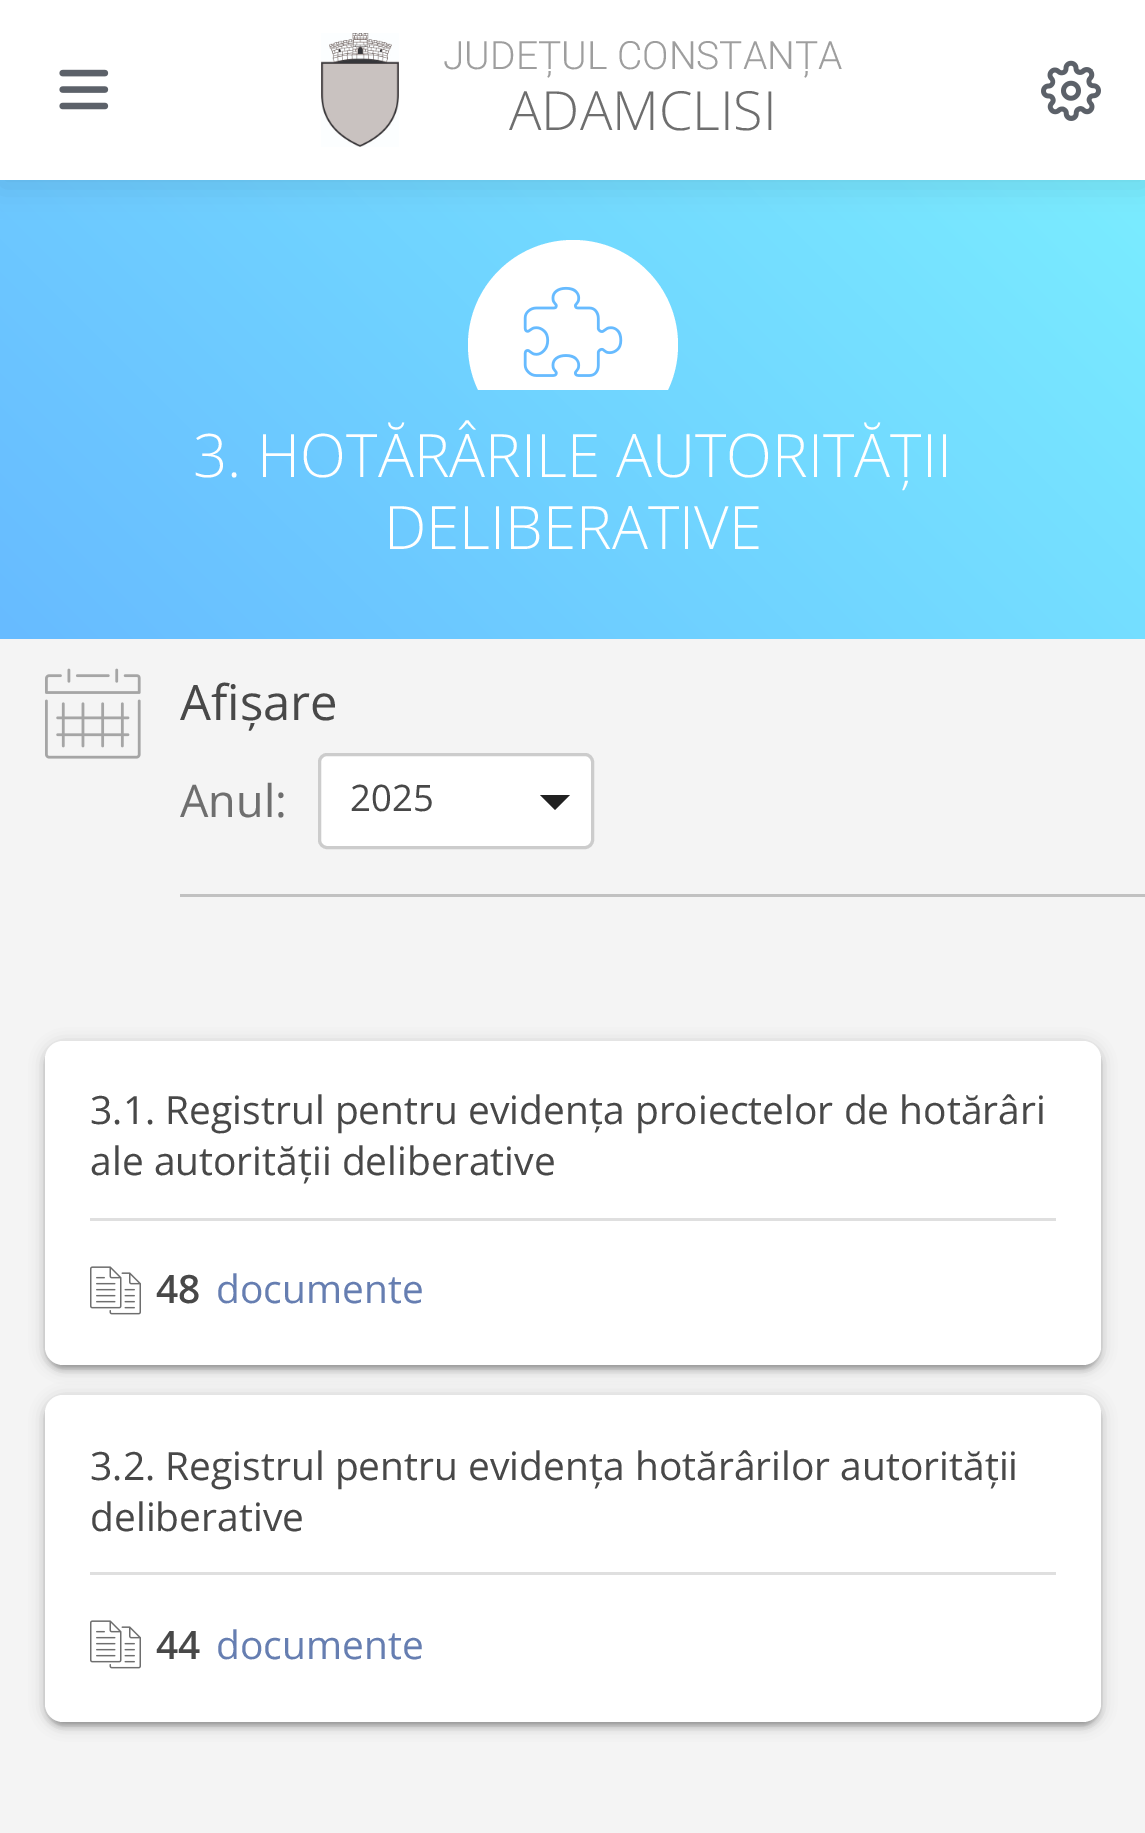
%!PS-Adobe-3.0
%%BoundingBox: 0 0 1145 1833
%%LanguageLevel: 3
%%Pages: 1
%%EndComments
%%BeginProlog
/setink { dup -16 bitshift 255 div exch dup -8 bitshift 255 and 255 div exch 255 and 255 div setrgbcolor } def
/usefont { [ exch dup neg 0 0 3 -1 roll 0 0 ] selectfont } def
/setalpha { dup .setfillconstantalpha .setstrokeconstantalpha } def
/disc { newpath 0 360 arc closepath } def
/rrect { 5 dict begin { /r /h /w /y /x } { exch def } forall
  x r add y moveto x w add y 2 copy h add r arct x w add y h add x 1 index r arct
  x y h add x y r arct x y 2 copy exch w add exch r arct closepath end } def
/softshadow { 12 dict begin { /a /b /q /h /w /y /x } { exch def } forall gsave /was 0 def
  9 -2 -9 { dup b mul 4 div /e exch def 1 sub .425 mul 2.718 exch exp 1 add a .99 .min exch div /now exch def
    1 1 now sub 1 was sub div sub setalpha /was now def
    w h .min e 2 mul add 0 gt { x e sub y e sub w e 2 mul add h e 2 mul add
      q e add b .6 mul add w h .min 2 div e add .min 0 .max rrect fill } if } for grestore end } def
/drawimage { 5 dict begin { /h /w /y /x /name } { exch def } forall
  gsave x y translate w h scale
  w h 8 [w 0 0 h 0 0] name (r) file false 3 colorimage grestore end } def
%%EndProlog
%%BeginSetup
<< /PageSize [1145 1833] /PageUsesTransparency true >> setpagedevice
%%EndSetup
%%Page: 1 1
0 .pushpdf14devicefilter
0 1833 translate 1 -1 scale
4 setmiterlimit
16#F4F4F4 setink
0 0 1145 1833 rectfill
gsave 0 180 moveto 1145 180 lineto 1145 639 lineto 0 639 lineto closepath clip newpath
<< /ShadingType 2 /ColorSpace /DeviceRGB /Coords [172 811 974 8] /Extend [true true] /Function << /FunctionType 2 /Domain [0 1] /C0 [0.404 0.733 1] /C1 [0.478 0.929 1] /N 1 >> >> shfill grestore
16#000000 setink
0 6 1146 180 0 15 0.1 softshadow
16#FFFFFF setink
0 0 1145 180 rectfill
(img1.raw) 59 69 50 41 drawimage
(img2.raw) 321 33 78 114 drawimage
/Roboto-Light 39 usefont
16#9E9E9E setink
443 69 moveto (JUDEȚUL CONSTANȚA) show
/OpenSans-Light 54 usefont
16#6E6E6E setink
509 130 moveto (ADAMCLISI) show
(img3.raw) 1041 60 60 61 drawimage
gsave
468 240 210 150 rectclip
16#FFFFFF setink
573 345 105 disc fill
grestore
(img4.raw) 523 286 100 91 drawimage
/OpenSans-Light 60 usefont
16#FFFFFF setink
193 477 moveto (3. HOTĂRÂRILE AUTORITĂȚII) show
384 549 moveto (DELIBERATIVE) show
(img5.raw) 45 668 96 91 drawimage
16#C1C1C1 setink
180 894 965 3 rectfill
/OpenSans-Regular 49 usefont
16#484848 setink
180 720 moveto (Afișare) show
/OpenSans-Regular 45 usefont
16#6E6E6E setink
180 817 moveto (Anul:) show
16#FFFFFF setink
319.5 754.5 273 93 7.5 rrect gsave fill grestore
16#CCCCCC setink
3 setlinewidth
stroke
/OpenSans-Regular 36.5 usefont
16#484848 setink
350 811 moveto (2025) show
16#212121 setink
540 795 moveto 555 810 lineto 570 795 lineto closepath fill
16#000000 setink
45 1044 1056 324 18 7.5 0.2 softshadow
51 1056 1044 312 12 1.5 0.12 softshadow
45 1047 1056 324 18 3 0.14 softshadow
16#FFFFFF setink
45 1041 1056 324 18 rrect fill
16#DFDFDF setink
90 1218 966 3 rectfill
/OpenSans-Regular 39 usefont
16#484848 setink
90 1124 moveto (3.1. Registrul pentru evidența proiectelor de hotărâri) show
90 1175 moveto (ale autorității deliberative) show
(img6.raw) 90 1266 51 49 drawimage
/OpenSans-SemiBold 39 usefont
156 1303 moveto (48) show
/OpenSans-Regular 39 usefont
16#667EB1 setink
216 1303 moveto (documente) show
16#000000 setink
45 1398 1056 327 18 7.5 0.2 softshadow
51 1410 1044 315 12 1.5 0.12 softshadow
45 1401 1056 327 18 3 0.14 softshadow
16#FFFFFF setink
45 1395 1056 327 18 rrect fill
16#DFDFDF setink
90 1572 966 3 rectfill
16#484848 setink
90 1480 moveto (3.2. Registrul pentru evidența hotărârilor autorității) show
90 1531 moveto (deliberative) show
(img6.raw) 90 1620 51 49 drawimage
/OpenSans-SemiBold 39 usefont
156 1659 moveto (44) show
/OpenSans-Regular 39 usefont
16#667EB1 setink
216 1659 moveto (documente) show
.poppdf14devicefilter showpage
%%EOF
